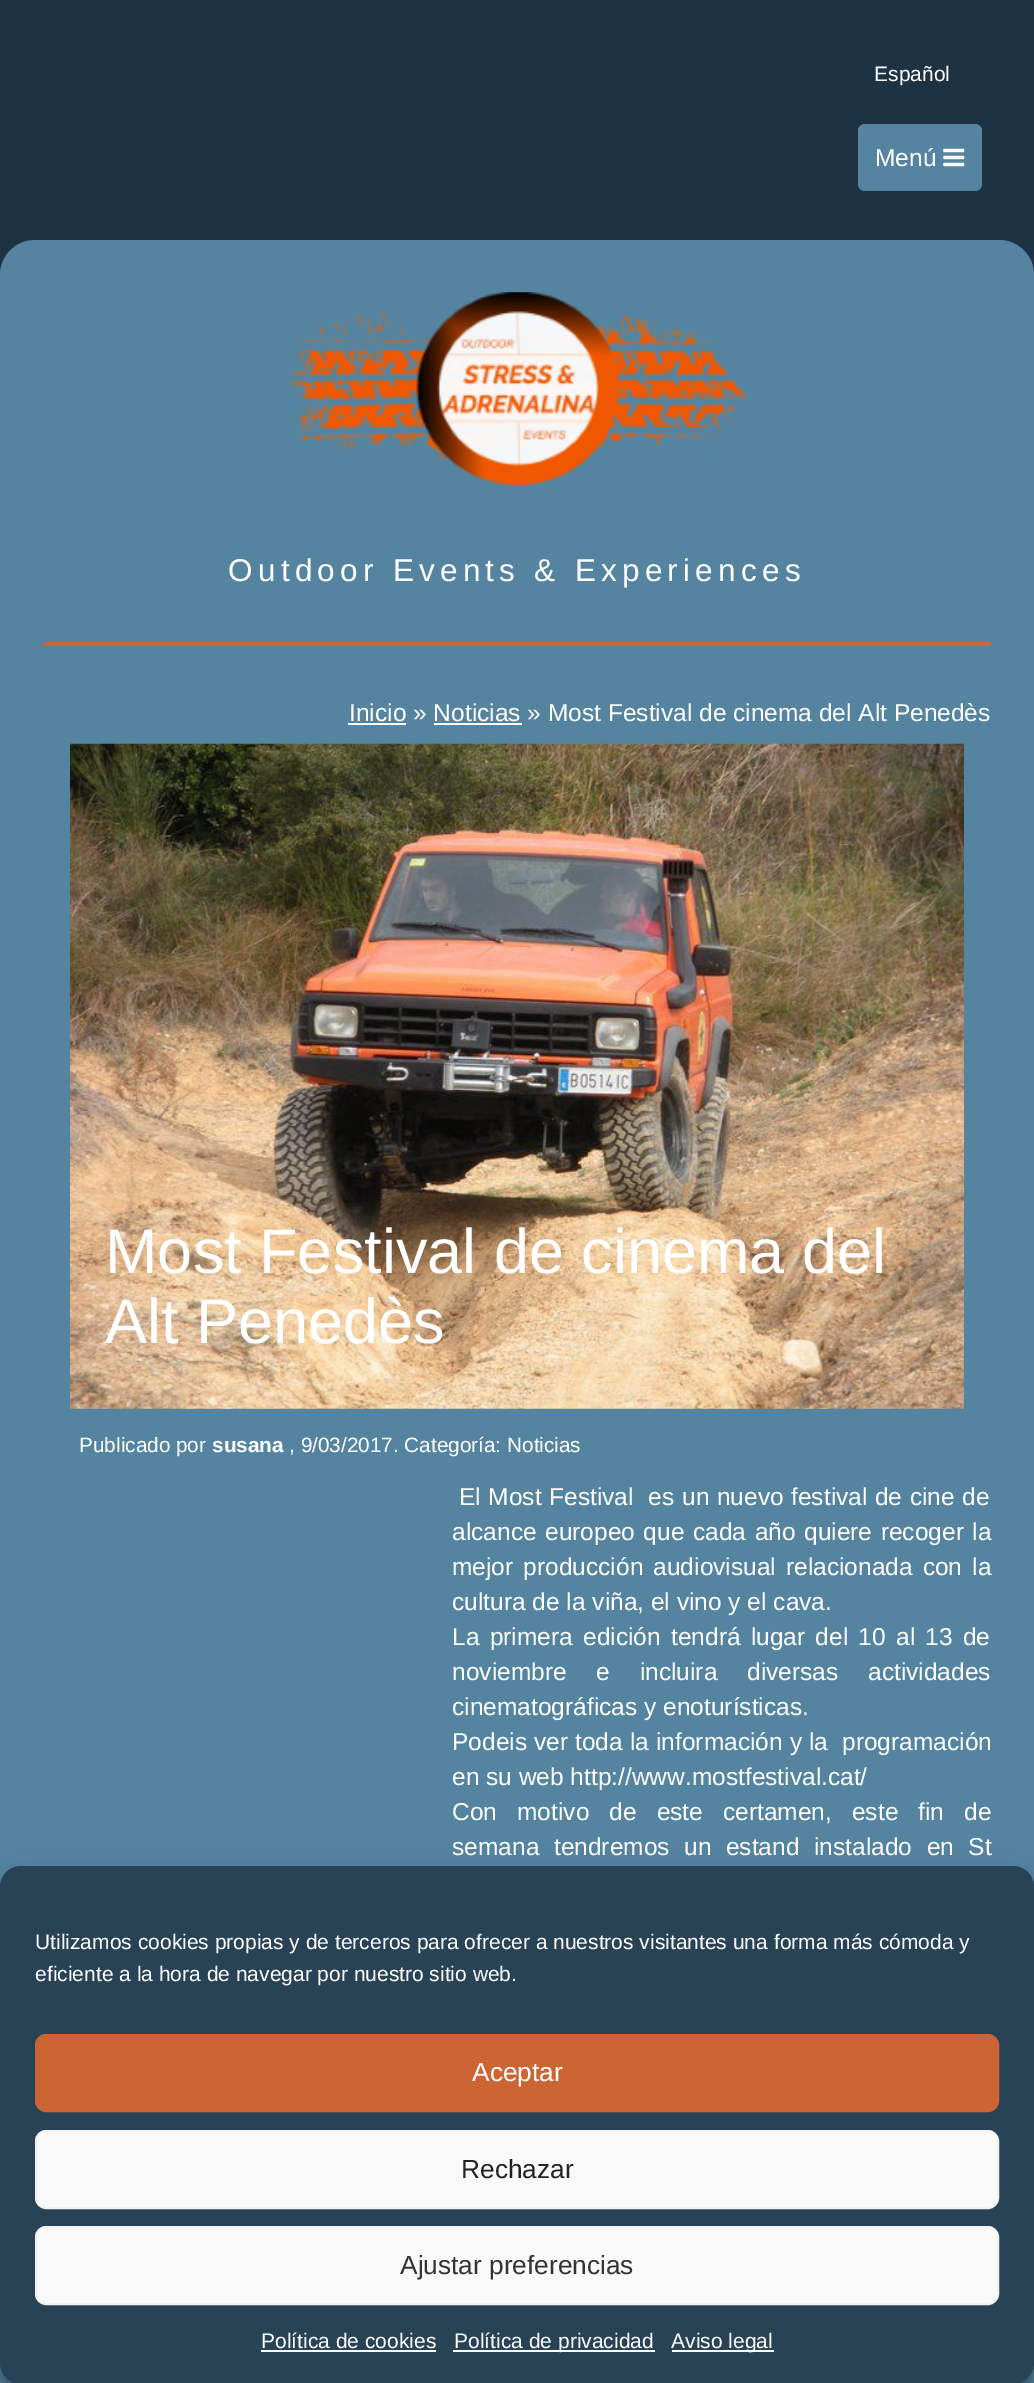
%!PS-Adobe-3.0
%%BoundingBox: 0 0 1034 2383
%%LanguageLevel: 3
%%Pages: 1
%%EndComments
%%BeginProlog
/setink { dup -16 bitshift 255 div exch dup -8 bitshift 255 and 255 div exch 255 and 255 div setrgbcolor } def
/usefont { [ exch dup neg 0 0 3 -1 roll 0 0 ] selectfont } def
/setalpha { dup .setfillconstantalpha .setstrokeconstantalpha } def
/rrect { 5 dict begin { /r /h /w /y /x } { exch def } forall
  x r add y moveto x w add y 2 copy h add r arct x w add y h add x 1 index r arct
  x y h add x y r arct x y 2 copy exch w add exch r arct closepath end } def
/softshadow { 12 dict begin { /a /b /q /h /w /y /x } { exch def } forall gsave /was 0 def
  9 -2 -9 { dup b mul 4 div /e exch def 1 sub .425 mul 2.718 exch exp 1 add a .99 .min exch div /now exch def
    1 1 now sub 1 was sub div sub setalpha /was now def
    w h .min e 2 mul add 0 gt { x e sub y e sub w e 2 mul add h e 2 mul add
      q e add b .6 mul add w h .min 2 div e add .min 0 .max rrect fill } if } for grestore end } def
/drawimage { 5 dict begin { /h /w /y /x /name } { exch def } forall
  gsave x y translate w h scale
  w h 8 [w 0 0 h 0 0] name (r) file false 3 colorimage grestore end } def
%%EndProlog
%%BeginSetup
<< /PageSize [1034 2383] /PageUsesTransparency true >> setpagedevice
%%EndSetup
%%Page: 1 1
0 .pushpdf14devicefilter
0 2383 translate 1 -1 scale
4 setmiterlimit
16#1D3242 setink
0 0 1034 2383 rectfill
/LiberationSans-Regular 21 usefont
16#FFFFFF setink
874 81 moveto (Español) show
16#5584A0 setink
858 124 124 67 7 rrect fill
/LiberationSans-Regular 24.5 usefont
16#FFFFFF setink
875 166 moveto (Menú) show
(img1.raw) 943 148 22 19 drawimage
16#5584A0 setink
0 240 1034 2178 35 rrect fill
(img2.raw) 290 292 456 193 drawimage
/LiberationSans-Regular 31.5 usefont
16#FFFFFF setink
228 581 moveto 5.25 0 (Outdoor Events & Experiences) ashow
16#CC6633 setink
44 642 947 4 rectfill
/LiberationSans-Regular 24.5 usefont
16#FFFFFF setink
349 721 moveto (Inicio » Noticias » Most Festival de cinema del Alt Penedès) show
348 723 58 2 rectfill
434 723 88 2 rectfill
(img3.raw) 70 743 895 666 drawimage
16#5584A0 setink
964 744 1 665 rectfill
/LiberationSans-Regular 63 usefont
16#FFFFFF setink
105 1273 moveto (Most Festival de cinema del) show
105 1343 moveto (Alt Penedès) show
/LiberationSans-Regular 20.75 usefont
79 1452 moveto (Publicado por) show
/LiberationSans-Bold 20.75 usefont
212 1452 moveto (susana) show
/LiberationSans-Regular 20.75 usefont
289 1452 moveto (, 9/03/2017. Categoría: Noticias) show
/LiberationSans-Regular 24.5 usefont
459 1505 moveto 0.75 0 32 (El Most Festival  es un nuevo festival de cine de) widthshow
452 1540 moveto 1.75 0 32 (alcance europeo que cada año quiere recoger la) widthshow
452 1575 moveto 3.25 0 32 (mejor producción audiovisual relacionada con la) widthshow
452 1610 moveto (cultura de la viña, el vino y el cava.) show
452 1645 moveto 3.5 0 32 (La primera edición tendrá lugar del 10 al 13 de) widthshow
452 1680 moveto 23 0 32 (noviembre e incluira diversas actividades) widthshow
452 1715 moveto (cinematográficas y enoturísticas.) show
452 1750 moveto 0.25 0 32 (Podeis ver toda la información y la  programación) widthshow
452 1785 moveto (en su web http://www.mostfestival.cat/) show
452 1820 moveto 13.25 0 32 (Con motivo de este certamen, este fin de) widthshow
452 1855 moveto 7.75 0 32 (semana tendremos un estand instalado en St) widthshow
16#000000 setink
0 1876 1034 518 21 5 0.23 softshadow
0 1883 1034 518 21 17.5 0.19 softshadow
16#284355 setink
0 1866 1034 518 21 rrect fill
/LiberationSans-Regular 21 usefont
16#FFFFFF setink
35 1949 moveto (Utilizamos cookies propias y de terceros para ofrecer a nuestros visitantes una forma más cómoda y) show
35 1981 moveto (eficiente a la hora de navegar por nuestro sitio web.) show
16#CC6533 setink
36 2035 962 76 10 rrect gsave fill grestore
2 setlinewidth
stroke
/LiberationSans-Regular 26.25 usefont
16#FFFFFF setink
472 2081 moveto (Aceptar) show
16#F9F9F9 setink
36 2131 962 77 10 rrect gsave fill grestore
16#F2F2F2 setink
stroke
16#222222 setink
461 2178 moveto (Rechazar) show
16#F9F9F9 setink
36 2227 962 77 10 rrect gsave fill grestore
16#F2F2F2 setink
stroke
16#333333 setink
400 2274 moveto (Ajustar preferencias) show
/LiberationSans-Regular 21 usefont
16#FFFFFF setink
261 2348 moveto (Política de cookies) show
261 2350 175 2 rectfill
453 2350 202 2 rectfill
454 2348 moveto (Política de privacidad) show
672 2350 102 2 rectfill
671 2348 moveto (Aviso legal) show
.poppdf14devicefilter showpage
%%EOF
